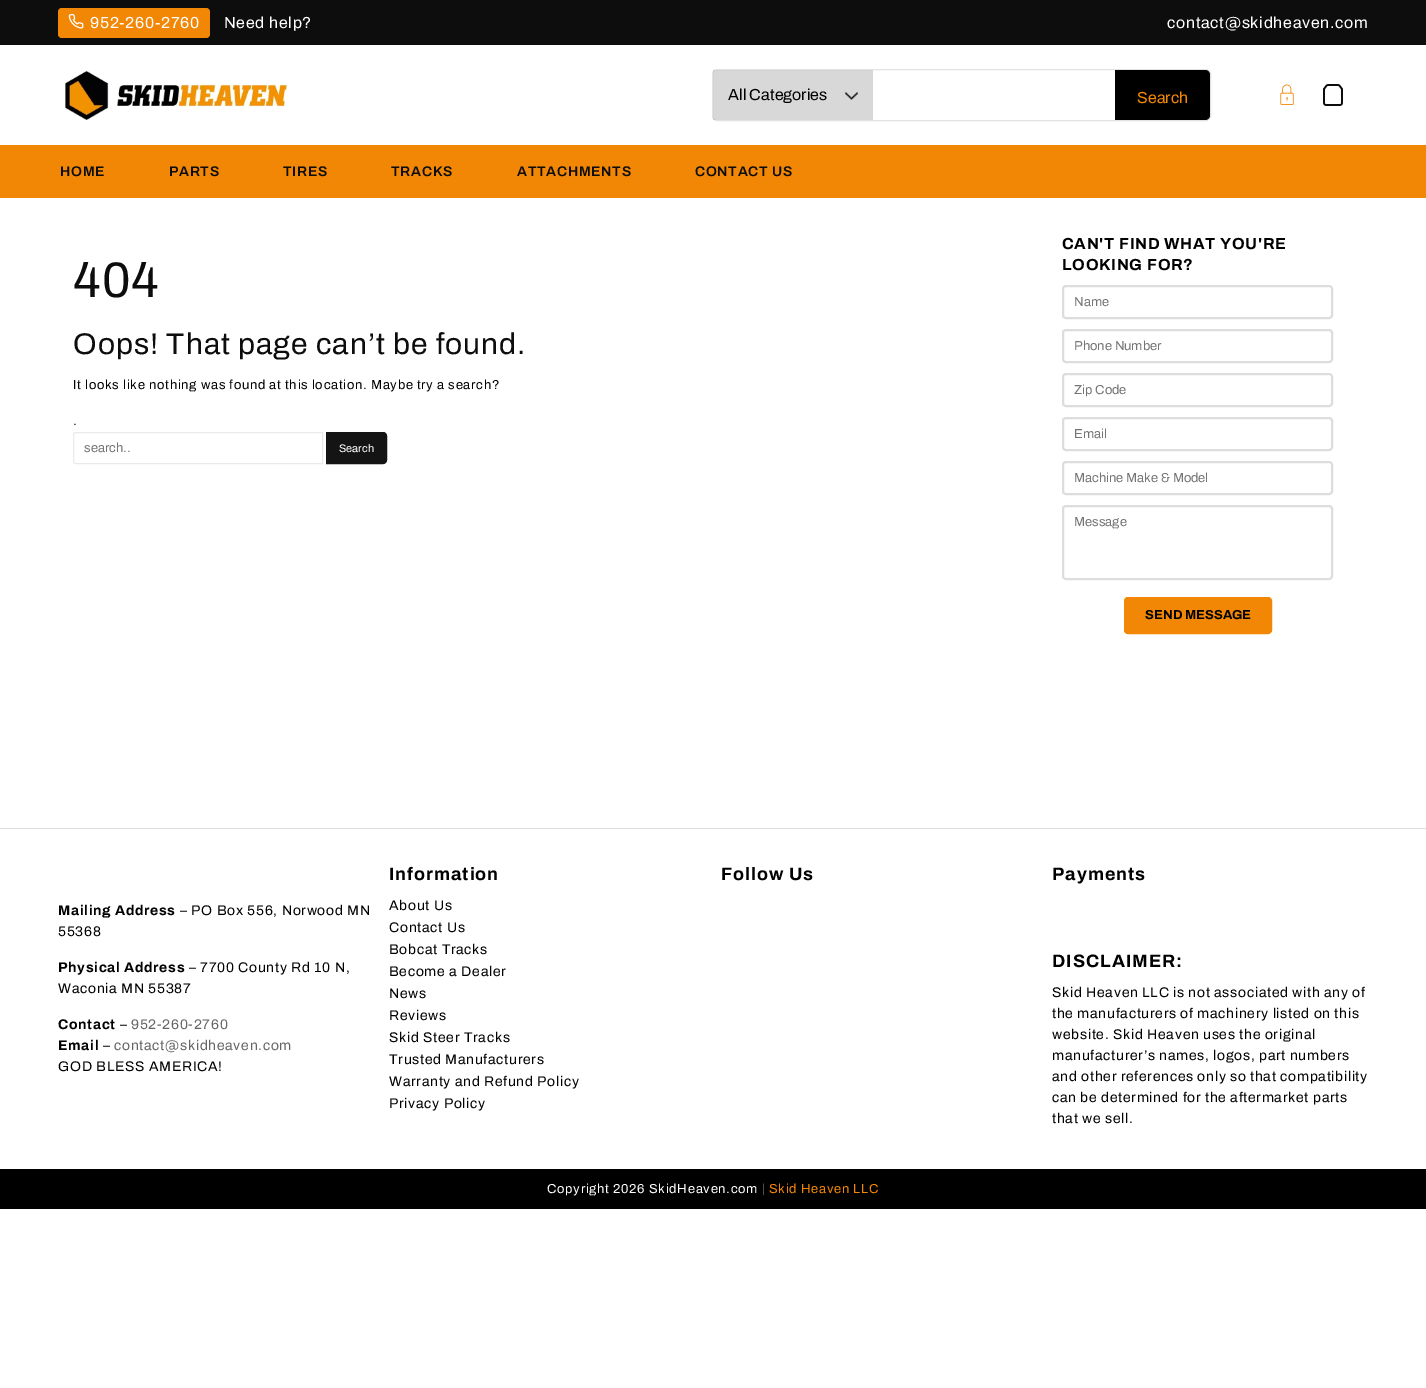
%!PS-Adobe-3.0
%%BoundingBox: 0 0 1426 1388
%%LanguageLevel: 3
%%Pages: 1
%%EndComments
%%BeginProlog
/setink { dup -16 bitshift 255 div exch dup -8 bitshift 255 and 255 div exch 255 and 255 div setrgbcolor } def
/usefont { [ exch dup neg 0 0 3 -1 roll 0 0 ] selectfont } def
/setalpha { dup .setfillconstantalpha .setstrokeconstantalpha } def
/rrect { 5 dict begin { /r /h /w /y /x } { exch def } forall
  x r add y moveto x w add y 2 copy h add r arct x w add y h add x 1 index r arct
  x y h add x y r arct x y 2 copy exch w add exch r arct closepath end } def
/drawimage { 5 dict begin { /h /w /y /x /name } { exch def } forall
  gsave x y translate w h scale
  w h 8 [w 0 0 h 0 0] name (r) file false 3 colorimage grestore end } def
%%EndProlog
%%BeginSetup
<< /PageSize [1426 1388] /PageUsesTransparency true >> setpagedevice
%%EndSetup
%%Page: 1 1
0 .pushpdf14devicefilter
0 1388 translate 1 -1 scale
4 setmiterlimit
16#FFFFFF setink
0 0 1426 1388 rectfill
16#0D0D0D setink
0 0 1426 45 rectfill
16#F28705 setink
58 8 152 30 4 rrect fill
(img1.raw) 68 14 16 15 drawimage
/Archivo-Regular 16 usefont
16#FFFFFF setink
90 28 moveto 0.7 0 (952-260-2760) ashow
224 28 moveto 0.7 0 (Need help?) ashow
1167 28 moveto 0.7 0 (contact@skidheaven.com) ashow
(img2.raw) 65 71 223 49 drawimage
16#E2E1E6 setink
712.5 69.5 498 51 4.5 rrect stroke
0.5 setalpha
16#B1B1B1 setink
713 70 160 50 rectfill
1 setalpha
16#000000 setink
728 100 moveto (All Categories) show
(img3.raw) 845 92 13 8 drawimage
1115 70 moveto 1205 70 lineto 1208 70 1210 72 1210 75 curveto 1210 115 lineto 1210 118 1208 120 1205 120 curveto 1115 120 lineto closepath fill
16#F28705 setink
1137 103 moveto (Search) show
(img4.raw) 1280 84 14 21 drawimage
(img5.raw) 1323 84 20 22 drawimage
0 145 1426 53 rectfill
/Archivo-SemiBold 14 usefont
16#0D0D0D setink
60 176 moveto 0.7 0 (HOME) ashow
169 176 moveto 0.7 0 (PARTS) ashow
283 176 moveto 0.7 0 (TIRES) ashow
391 176 moveto 0.7 0 (TRACKS) ashow
517 176 moveto 0.7 0 (ATTACHMENTS) ashow
695 176 moveto 0.7 0 (CONTACT US) ashow
/Archivo-Regular 50 usefont
73 297 moveto 1 0 (404) ashow
/Archivo-Regular 30 usefont
73 354 moveto 1 0 (Oops! That page can’t be found.) ashow
/Archivo-Regular 13 usefont
16#000000 setink
73 389 moveto 0.7 0 (It looks like nothing was found at this location. Maybe try a search?) ashow
16#0D0D0D setink
73 425 moveto 0.7 0 (.) ashow
16#EAEAEA setink
76 432.5 moveto 322.5 432.5 lineto 322.5 463.5 lineto 76 463.5 lineto 74.5 463.5 73.5 462.5 73.5 461 curveto 73.5 435 lineto 73.5 433.5 74.5 432.5 76 432.5 curveto closepath stroke
16#757575 setink
84 452 moveto (search..) show
16#141415 setink
326.5 432.5 moveto 383 432.5 lineto 385 432.5 386.5 434 386.5 436 curveto 386.5 460 lineto 386.5 462 385 463.5 383 463.5 curveto 326.5 463.5 lineto closepath gsave fill grestore
stroke
/Archivo-Regular 11 usefont
16#FFFFFF setink
339 452 moveto (Search) show
/Archivo-Bold 16 usefont
16#000000 setink
1062 249 moveto 0.7 0 (CAN'T FIND WHAT YOU'RE) ashow
1062 270 moveto 0.7 0 (LOOKING FOR?) ashow
16#DDDDDD setink
2 setlinewidth
1063 286 269 32 3 rrect stroke
/Archivo-Regular 13 usefont
16#757575 setink
1074 306 moveto (Name) show
16#DDDDDD setink
1063 330 269 32 3 rrect stroke
16#757575 setink
1074 350 moveto (Phone Number) show
16#DDDDDD setink
1063 374 269 32 3 rrect stroke
16#757575 setink
1074 394 moveto (Zip Code) show
16#DDDDDD setink
1063 418 269 32 3 rrect stroke
16#757575 setink
1074 438 moveto (Email) show
16#DDDDDD setink
1063 462 269 32 3 rrect stroke
16#757575 setink
1074 482 moveto (Machine Make & Model) show
16#DDDDDD setink
1063 506 269 73 3 rrect stroke
16#757575 setink
1074 526 moveto (Message) show
16#F28705 setink
1124.5 597.5 147 36 3.5 rrect gsave fill grestore
1 setlinewidth
stroke
/Archivo-Bold 13 usefont
16#000000 setink
1145 619 moveto (SEND MESSAGE) show
16#DFDFDF setink
0 828 1426 1 rectfill
/Archivo-Bold 14 usefont
16#000000 setink
58 915 moveto 0.7 0 (Mailing Address) ashow
/Archivo-Regular 14 usefont
180 915 moveto 0.7 0 (– PO Box 556, Norwood MN) ashow
58 936 moveto 0.7 0 (55368) ashow
/Archivo-Bold 14 usefont
58 972 moveto 0.7 0 (Physical Address) ashow
/Archivo-Regular 14 usefont
189 972 moveto 0.7 0 (– 7700 County Rd 10 N,) ashow
58 993 moveto 0.7 0 (Waconia MN 55387) ashow
/Archivo-Bold 14 usefont
58 1029 moveto 0.7 0 (Contact) ashow
/Archivo-Regular 14 usefont
120 1029 moveto 0.7 0 (–) ashow
16#666666 setink
131 1029 moveto 0.7 0 (952-260-2760) ashow
/Archivo-Bold 14 usefont
16#000000 setink
58 1050 moveto 0.7 0 (Email) ashow
/Archivo-Regular 14 usefont
103 1050 moveto 0.7 0 (–) ashow
16#666666 setink
114 1050 moveto 0.7 0 (contact@skidheaven.com) ashow
16#000000 setink
58 1071 moveto 0.7 0 (GOD BLESS AMERICA!) ashow
/Archivo-Bold 18 usefont
389 880 moveto 1 0 (Information) ashow
/Archivo-Regular 14 usefont
389 910 moveto 0.7 0 (About Us) ashow
389 932 moveto 0.7 0 (Contact Us) ashow
389 954 moveto 0.7 0 (Bobcat Tracks) ashow
389 976 moveto 0.7 0 (Become a Dealer) ashow
389 998 moveto 0.7 0 (News) ashow
389 1020 moveto 0.7 0 (Reviews) ashow
389 1042 moveto 0.7 0 (Skid Steer Tracks) ashow
389 1064 moveto 0.7 0 (Trusted Manufacturers) ashow
389 1086 moveto 0.7 0 (Warranty and Refund Policy) ashow
389 1108 moveto 0.7 0 (Privacy Policy) ashow
/Archivo-Bold 18 usefont
721 880 moveto 1 0 (Follow Us) ashow
1052 880 moveto 1 0 (Payments) ashow
1052 967 moveto 1 0 (DISCLAIMER:) ashow
/Archivo-Regular 14 usefont
1052 997 moveto 0.7 0 (Skid Heaven LLC is not associated with any of) ashow
1052 1018 moveto 0.7 0 (the manufacturers of machinery listed on this) ashow
1052 1039 moveto 0.7 0 (website. Skid Heaven uses the original) ashow
1052 1060 moveto 0.7 0 (manufacturer’s names, logos, part numbers) ashow
1052 1081 moveto 0.7 0 (and other references only so that compatibility) ashow
1052 1102 moveto 0.7 0 (can be determined for the aftermarket parts) ashow
1052 1123 moveto 0.7 0 (that we sell.) ashow
0 1169 1426 40 rectfill
/Archivo-Regular 13 usefont
16#FFFFFF setink
547 1193 moveto 0.7 0 (Copyright 2026 SkidHeaven.com) ashow
16#4D4D4D setink
762 1193 moveto 0.7 0 (|) ashow
16#F28705 setink
769 1193 moveto 0.7 0 (Skid Heaven LLC) ashow
.poppdf14devicefilter showpage
%%EOF
